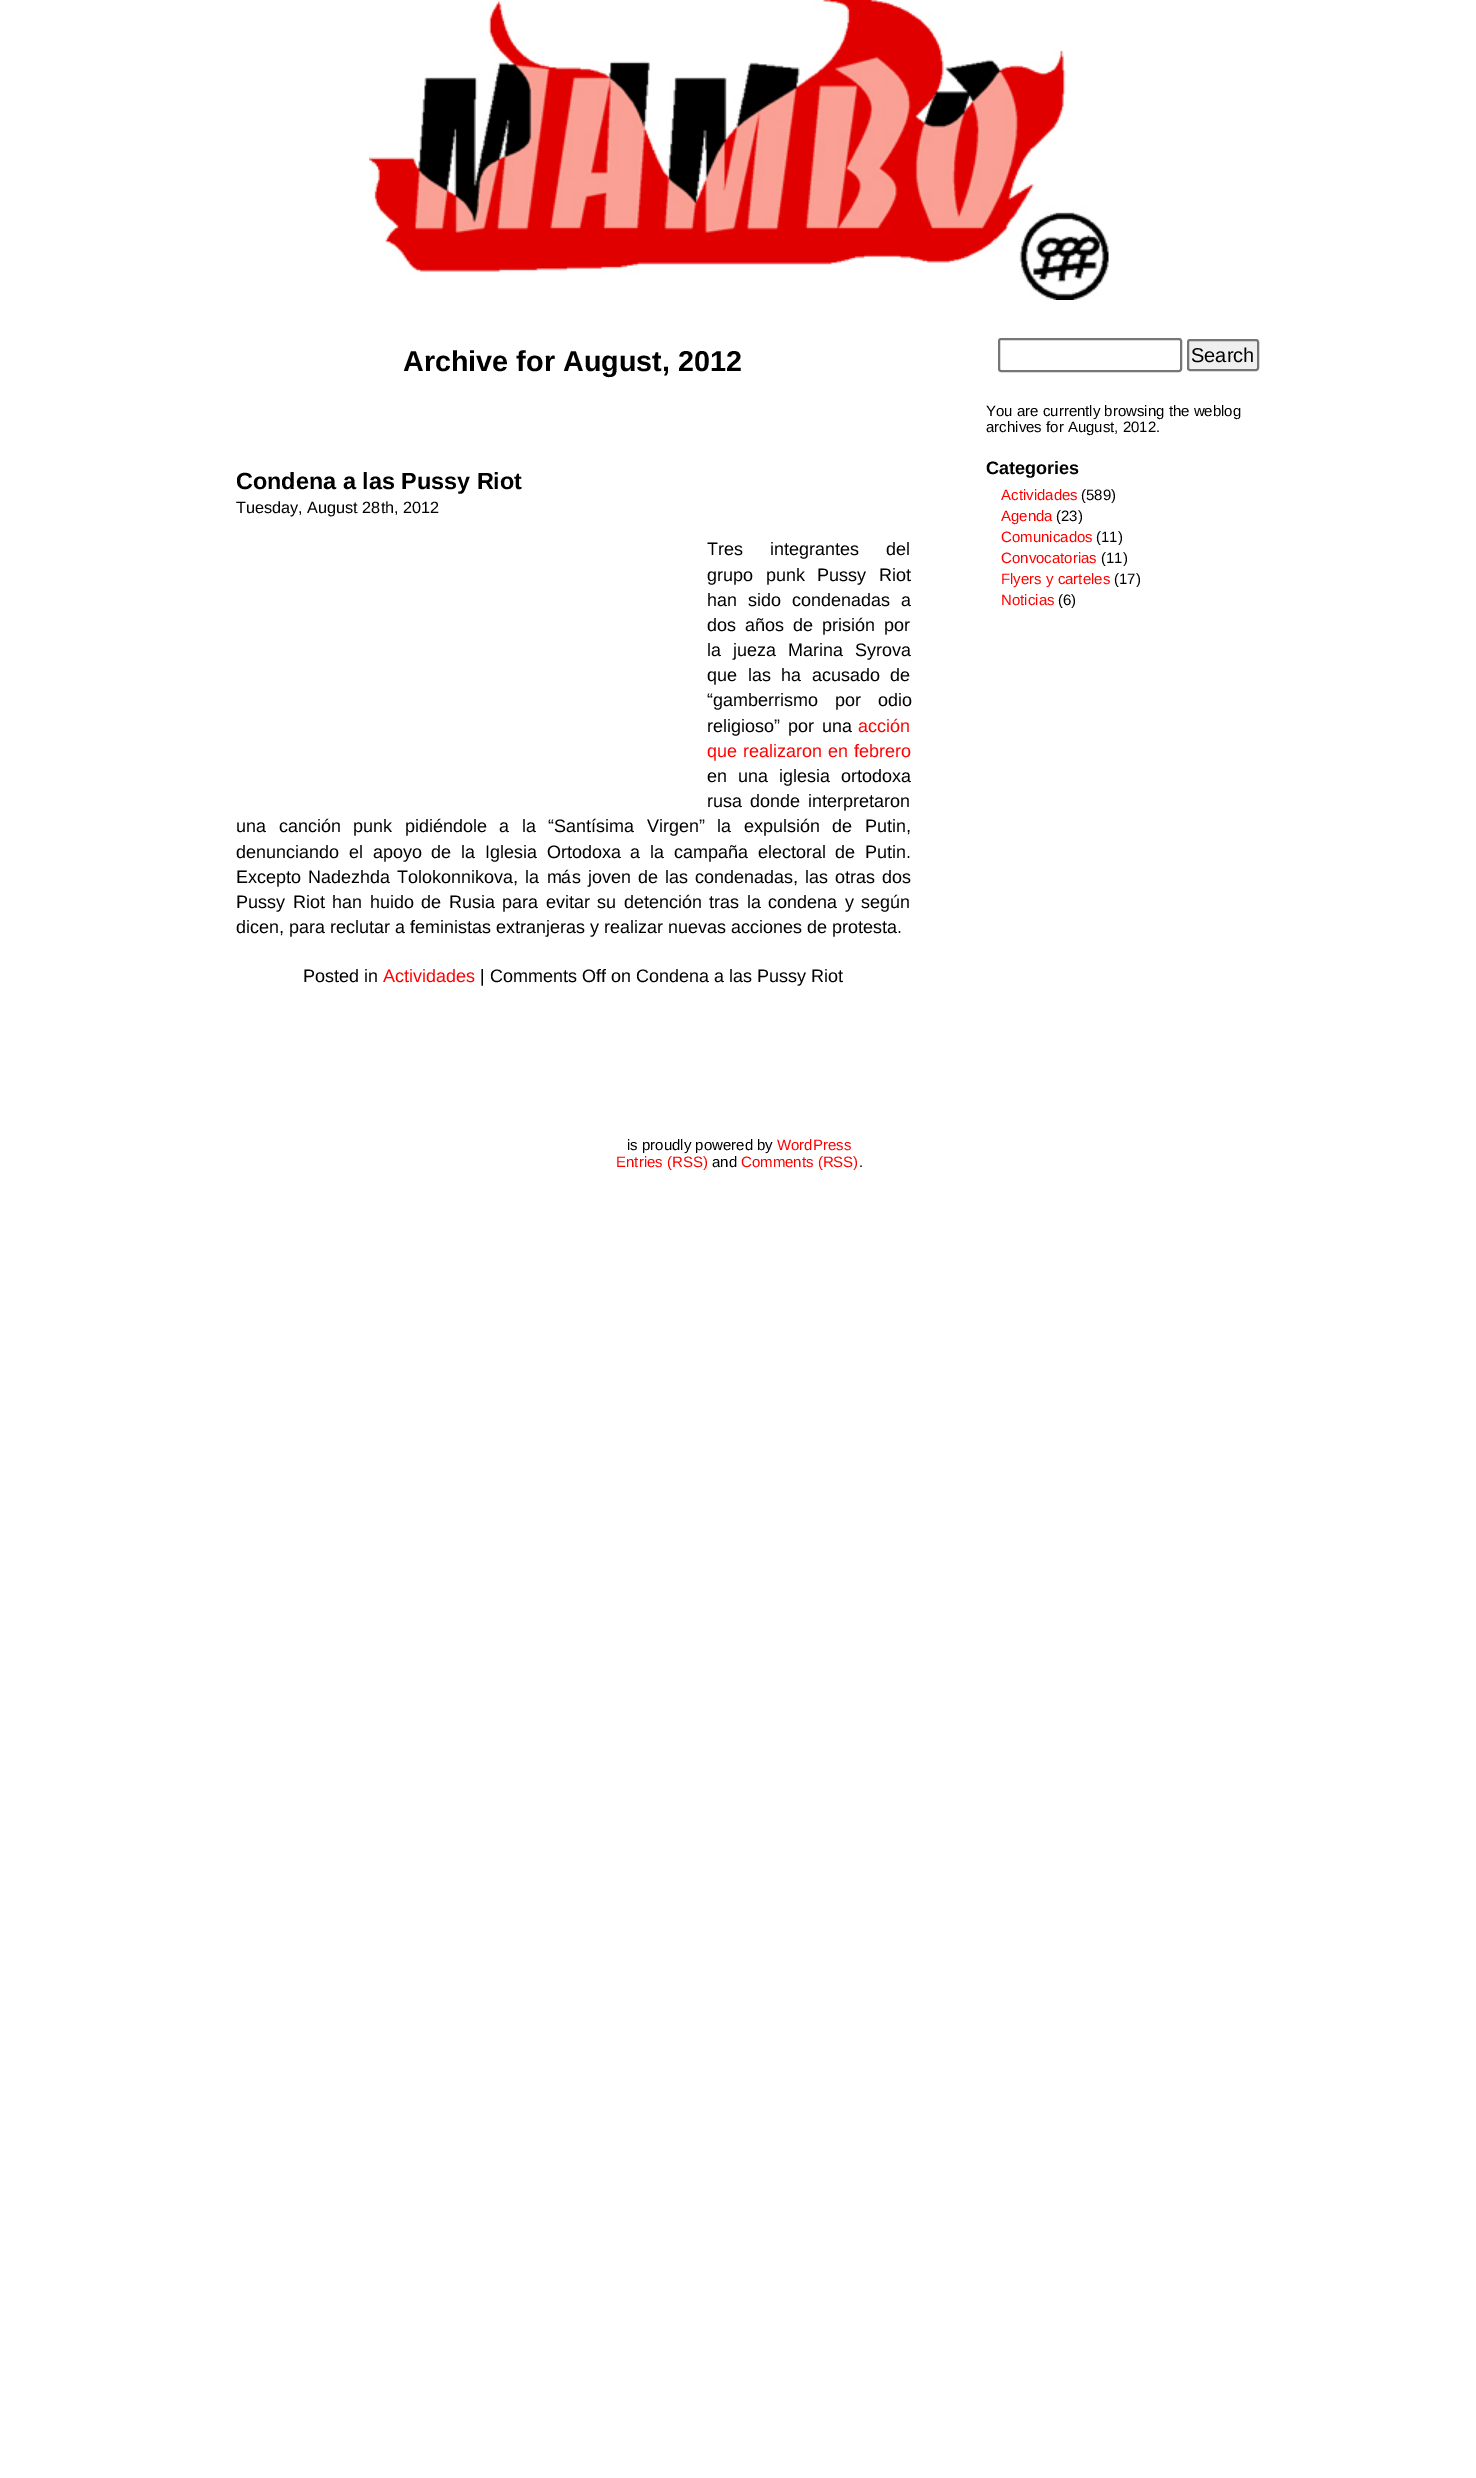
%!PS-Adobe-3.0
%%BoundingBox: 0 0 1476 2478
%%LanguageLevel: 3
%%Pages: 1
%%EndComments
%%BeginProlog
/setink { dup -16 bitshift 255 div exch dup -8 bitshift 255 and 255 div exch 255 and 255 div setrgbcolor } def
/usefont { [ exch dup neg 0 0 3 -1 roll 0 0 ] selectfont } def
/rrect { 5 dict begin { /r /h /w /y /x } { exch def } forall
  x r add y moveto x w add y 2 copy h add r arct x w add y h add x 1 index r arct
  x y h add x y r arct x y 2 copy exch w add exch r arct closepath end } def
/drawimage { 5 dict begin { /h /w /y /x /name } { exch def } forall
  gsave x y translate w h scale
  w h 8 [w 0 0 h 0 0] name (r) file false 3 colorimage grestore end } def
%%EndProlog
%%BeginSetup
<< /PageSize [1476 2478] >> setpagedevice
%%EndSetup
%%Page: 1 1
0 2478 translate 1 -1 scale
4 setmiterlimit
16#FFFFFF setink
0 0 1476 2478 rectfill
(img1.raw) 369 0 740 300 drawimage
/LiberationSans-Bold 28.75 usefont
16#000000 setink
403 371 moveto (Archive for August, 2012) show
/LiberationSans-Bold 23.4 usefont
236 489 moveto (Condena a las Pussy Riot) show
/LiberationSans-Regular 16.25 usefont
236 513 moveto (Tuesday, August 28th, 2012) show
/LiberationSans-Regular 18 usefont
707 555 moveto 22 0 32 (Tres integrantes del) widthshow
707 581 moveto 7.5 0 32 (grupo punk Pussy Riot) widthshow
707 606 moveto 6 0 32 (han sido condenadas a) widthshow
707 631 moveto 4 0 32 (dos años de prisión por) widthshow
707 656 moveto 7 0 32 (la jueza Marina Syrova) widthshow
707 681 moveto 5.5 0 32 (que las ha acusado de) widthshow
707 706 moveto 12 0 32 (“gamberrismo por odio) widthshow
707 732 moveto 3 0 32 (religioso” por una) widthshow
16#FF0000 setink
858 732 moveto (acción) show
707 757 moveto 1 0 32 (que realizaron en febrero) widthshow
16#000000 setink
707 782 moveto 6 0 32 (en una iglesia ortodoxa) widthshow
707 807 moveto 3 0 32 (rusa donde interpretaron) widthshow
236 832 moveto 7.5 0 32 (una canción punk pidiéndole a la “Santísima Virgen” la expulsión de Putin,) widthshow
236 858 moveto 4.75 0 32 (denunciando el apoyo de la Iglesia Ortodoxa a la campaña electoral de Putin.) widthshow
236 883 moveto 2.1 0 32 (Excepto Nadezhda Tolokonnikova, la más joven de las condenadas, las otras dos) widthshow
236 908 moveto 2.5 0 32 (Pussy Riot han huido de Rusia para evitar su detención tras la condena y según) widthshow
236 933 moveto (dicen, para reclutar a feministas extranjeras y realizar nuevas acciones de protesta.) show
303 982 moveto (Posted in) show
16#FF0000 setink
383 982 moveto (Actividades) show
16#000000 setink
480 982 moveto (| Comments Off on Condena a las Pussy Riot) show
16#767676 setink
2 setlinewidth
999 339 182 32 2 rrect stroke
16#EFEFEF setink
1188 340 70 30 2 rrect gsave fill grestore
16#767676 setink
stroke
/LiberationSans-Regular 20 usefont
16#000000 setink
1191 362 moveto (Search) show
/LiberationSans-Regular 15 usefont
986 416 moveto (You are currently browsing the weblog) show
986 432 moveto (archives for August, 2012.) show
/LiberationSans-Bold 18 usefont
986 474 moveto (Categories) show
/LiberationSans-Regular 15 usefont
16#FF0000 setink
1001 500 moveto (Actividades) show
16#000000 setink
1081 500 moveto (\(589\)) show
16#FF0000 setink
1001 521 moveto (Agenda) show
16#000000 setink
1056 521 moveto (\(23\)) show
16#FF0000 setink
1001 542 moveto (Comunicados) show
16#000000 setink
1096 542 moveto (\(11\)) show
16#FF0000 setink
1001 563 moveto (Convocatorias) show
16#000000 setink
1101 563 moveto (\(11\)) show
16#FF0000 setink
1001 584 moveto (Flyers y carteles) show
16#000000 setink
1114 584 moveto (\(17\)) show
16#FF0000 setink
1001 605 moveto (Noticias) show
16#000000 setink
1058 605 moveto (\(6\)) show
627 1150 moveto (is proudly powered by) show
16#FF0000 setink
777 1150 moveto (WordPress) show
616 1167 moveto (Entries \(RSS\)) show
16#000000 setink
712 1167 moveto (and) show
16#FF0000 setink
741 1167 moveto (Comments \(RSS\)) show
16#000000 setink
859 1167 moveto (.) show
showpage
%%EOF
